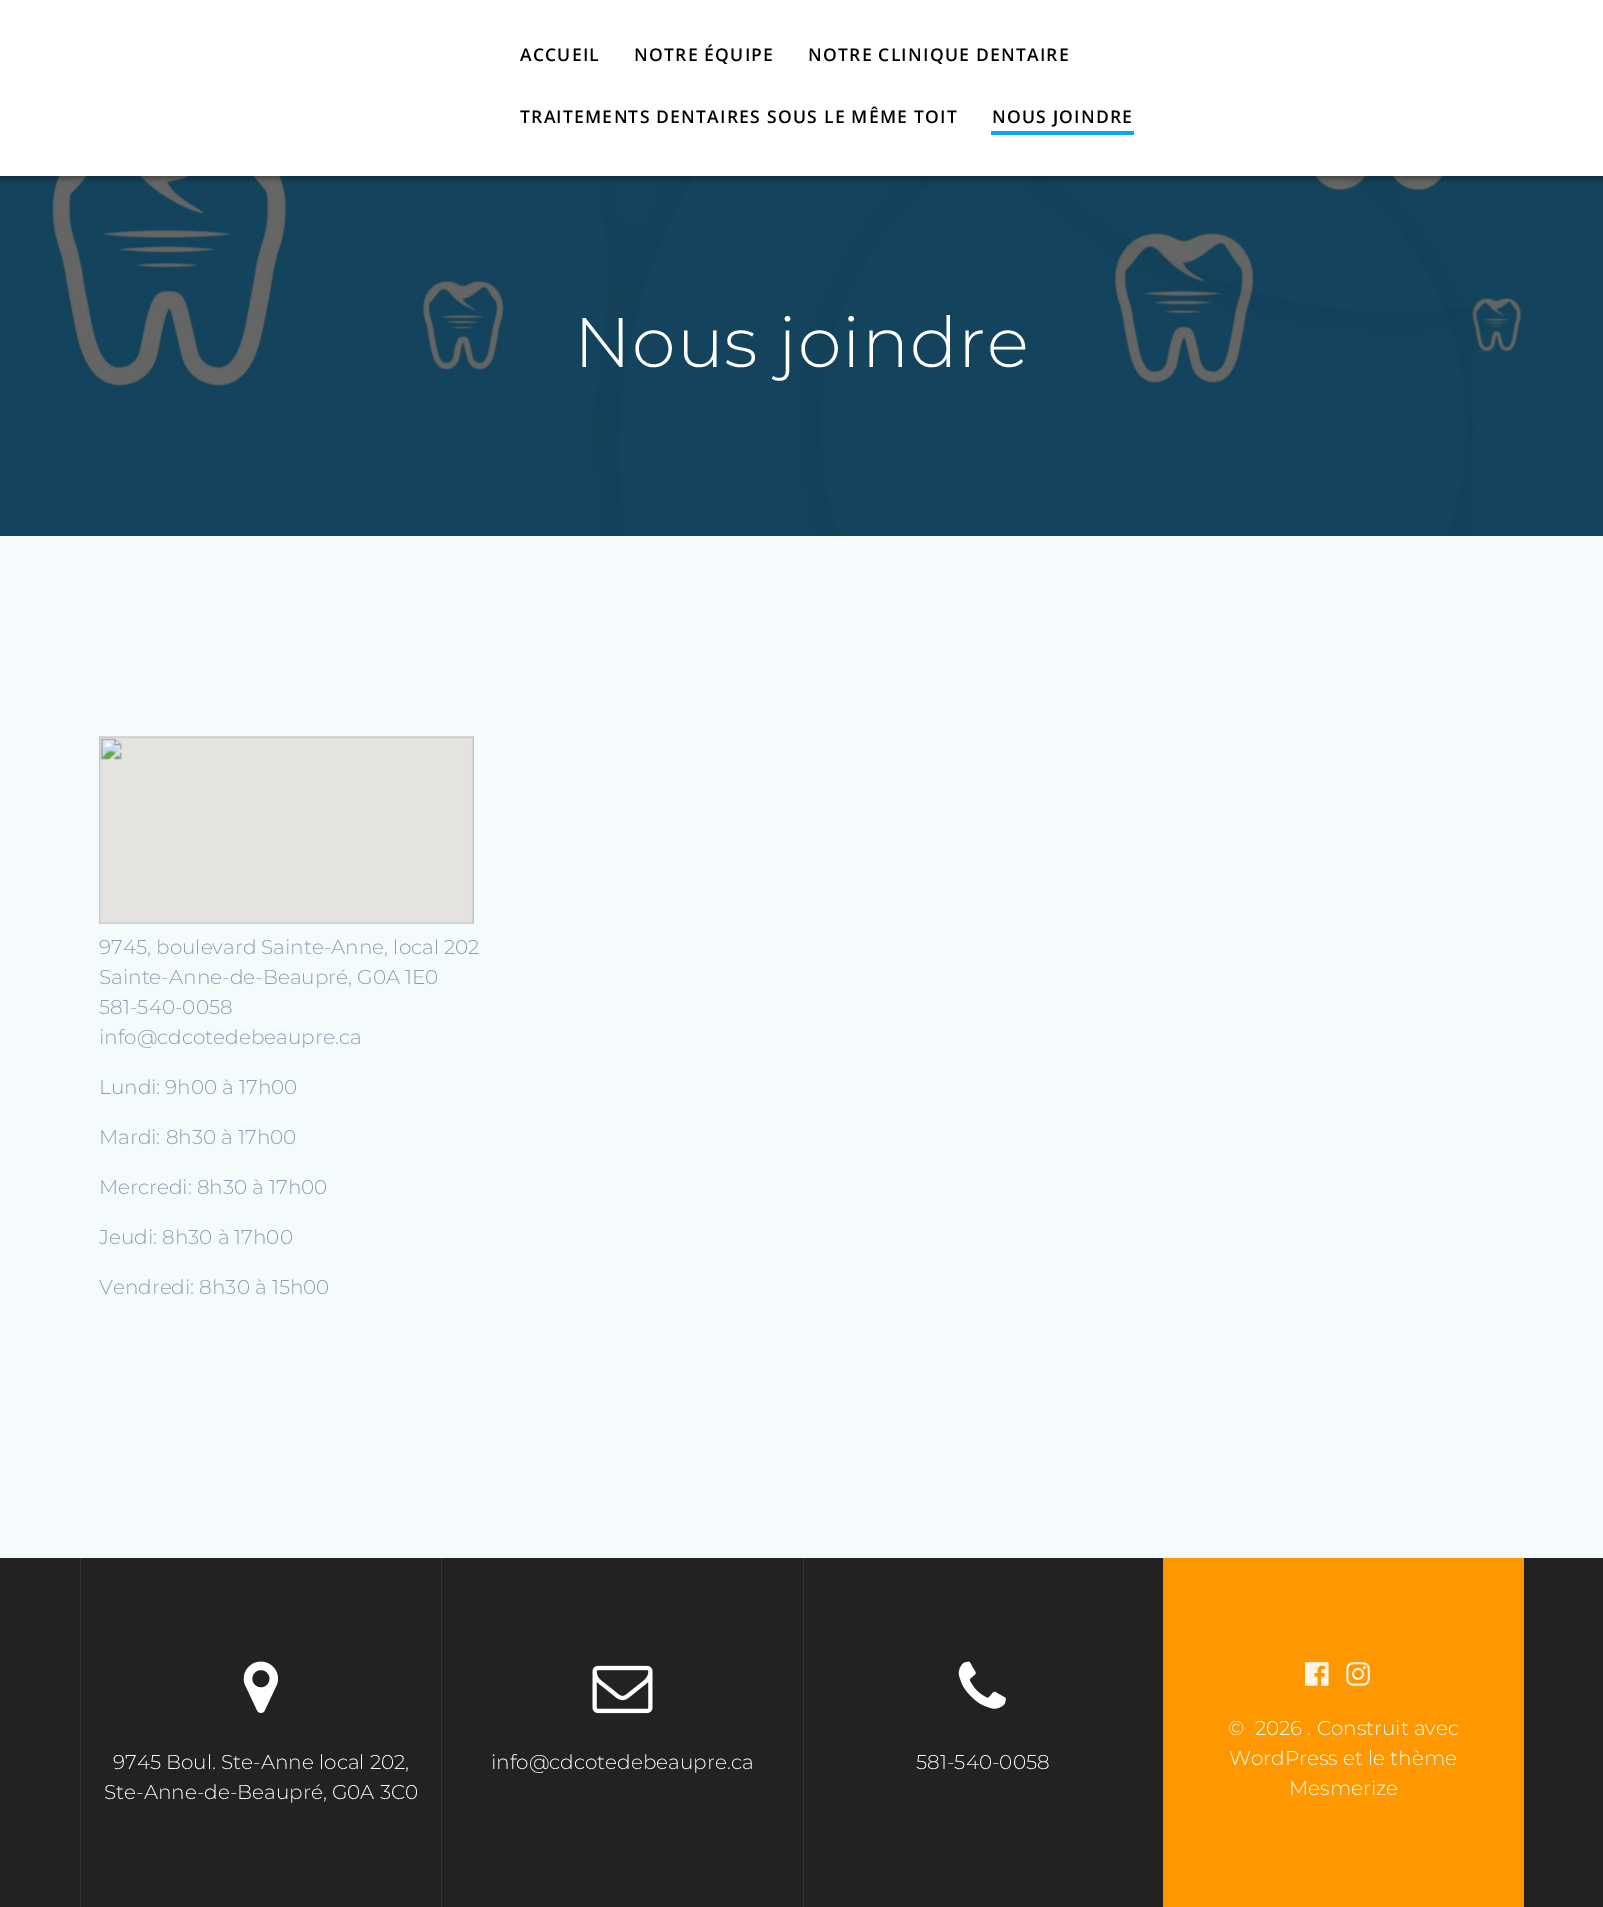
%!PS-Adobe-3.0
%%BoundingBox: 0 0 1603 1907
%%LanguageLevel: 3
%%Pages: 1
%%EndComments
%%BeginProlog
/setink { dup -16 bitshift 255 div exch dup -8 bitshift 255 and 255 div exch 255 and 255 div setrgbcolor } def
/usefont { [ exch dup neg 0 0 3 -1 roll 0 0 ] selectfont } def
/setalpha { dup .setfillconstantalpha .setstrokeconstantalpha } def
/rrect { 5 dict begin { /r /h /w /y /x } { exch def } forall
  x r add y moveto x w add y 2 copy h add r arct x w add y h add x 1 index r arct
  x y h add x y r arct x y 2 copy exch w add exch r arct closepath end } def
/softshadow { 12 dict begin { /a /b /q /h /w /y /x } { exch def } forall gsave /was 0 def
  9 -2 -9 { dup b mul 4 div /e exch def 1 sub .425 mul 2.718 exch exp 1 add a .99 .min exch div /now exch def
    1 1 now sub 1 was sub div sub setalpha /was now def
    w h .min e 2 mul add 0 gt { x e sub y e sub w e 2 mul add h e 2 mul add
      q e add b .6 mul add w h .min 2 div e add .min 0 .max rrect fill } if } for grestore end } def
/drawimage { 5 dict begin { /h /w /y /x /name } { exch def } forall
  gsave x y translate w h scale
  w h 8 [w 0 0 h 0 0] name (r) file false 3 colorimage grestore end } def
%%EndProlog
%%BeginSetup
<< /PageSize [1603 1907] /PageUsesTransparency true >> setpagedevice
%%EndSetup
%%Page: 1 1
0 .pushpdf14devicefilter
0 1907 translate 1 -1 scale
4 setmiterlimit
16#FFFFFF setink
0 0 1603 1907 rectfill
(img1.raw) 0 176 1603 360 drawimage
(img2.raw) 594 176 883 360 drawimage
16#000000 setink
-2 -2 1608 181 0 3 0.33 softshadow
16#FFFFFF setink
0 0 1603 176 rectfill
/OpenSans-SemiBold 17.5 usefont
16#000000 setink
520 61 moveto 1.25 0 (ACCUEIL) ashow
634 61 moveto 1.25 0 (NOTRE ÉQUIPE) ashow
808 61 moveto 1.25 0 (NOTRE CLINIQUE DENTAIRE) ashow
520 123 moveto 1.25 0 (TRAITEMENTS DENTAIRES SOUS LE MÊME TOIT) ashow
16#03A9F4 setink
991 131 143 4 rectfill
16#000000 setink
992 123 moveto 1.25 0 (NOUS JOINDRE) ashow
/Montserrat-Light 70 usefont
16#FFFFFF setink
574 367 moveto 1.1 0 (Nous joindre) ashow
16#F5FAFD setink
0 536 1603 1022 rectfill
(img3.raw) 99 736 375 188 drawimage
/Montserrat-Light 20 usefont
16#8E9DAE setink
[
    [(9745, boulevard Sainte-Anne, local 202) 99 954]
    [(Sainte-Anne-de-Beaupré, G0A 1E0) 99 984]
    [(581-540-0058) 99 1014]
    [(info@cdcotedebeaupre.ca) 99 1044]
    [(Lundi: 9h00 à 17h00) 99 1094]
    [(Mardi: 8h30 à 17h00) 99 1144]
    [(Mercredi: 8h30 à 17h00) 99 1194]
    [(Jeudi: 8h30 à 17h00) 99 1244]
    [(Vendredi: 8h30 à 15h00) 99 1294]
] { aload pop moveto show } forall
16#222222 setink
0 1558 1603 349 rectfill
16#353535 setink
80 1558 1 349 rectfill
(img4.raw) 243 1661 35 52 drawimage
16#FFFFFF setink
113 1769 moveto (9745 Boul. Ste-Anne local 202,) show
104 1799 moveto (Ste-Anne-de-Beaupré, G0A 3C0) show
16#353535 setink
441 1558 1 349 rectfill
(img5.raw) 592 1665 61 49 drawimage
16#FFFFFF setink
491 1769 moveto (info@cdcotedebeaupre.ca) show
16#353535 setink
803 1558 1 349 rectfill
(img6.raw) 958 1661 48 48 drawimage
16#FFFFFF setink
916 1769 moveto (581-540-0058) show
[
    [1164 1558 359 349 16#FF9800]
    [1523 1558 1 349 16#E6931A]
    [1163 1558 1 349 16#E6931A]
] { aload pop setink rectfill } forall
(img7.raw) 1305 1662 24 24 drawimage
(img8.raw) 1346 1662 24 24 drawimage
16#FFFFFF setink
[
    [(©  2026 . Construit avec) 1228 1735]
    [(WordPress et le thème) 1229 1765]
    [(Mesmerize) 1289 1795]
] { aload pop moveto show } forall
.poppdf14devicefilter showpage
%%EOF
